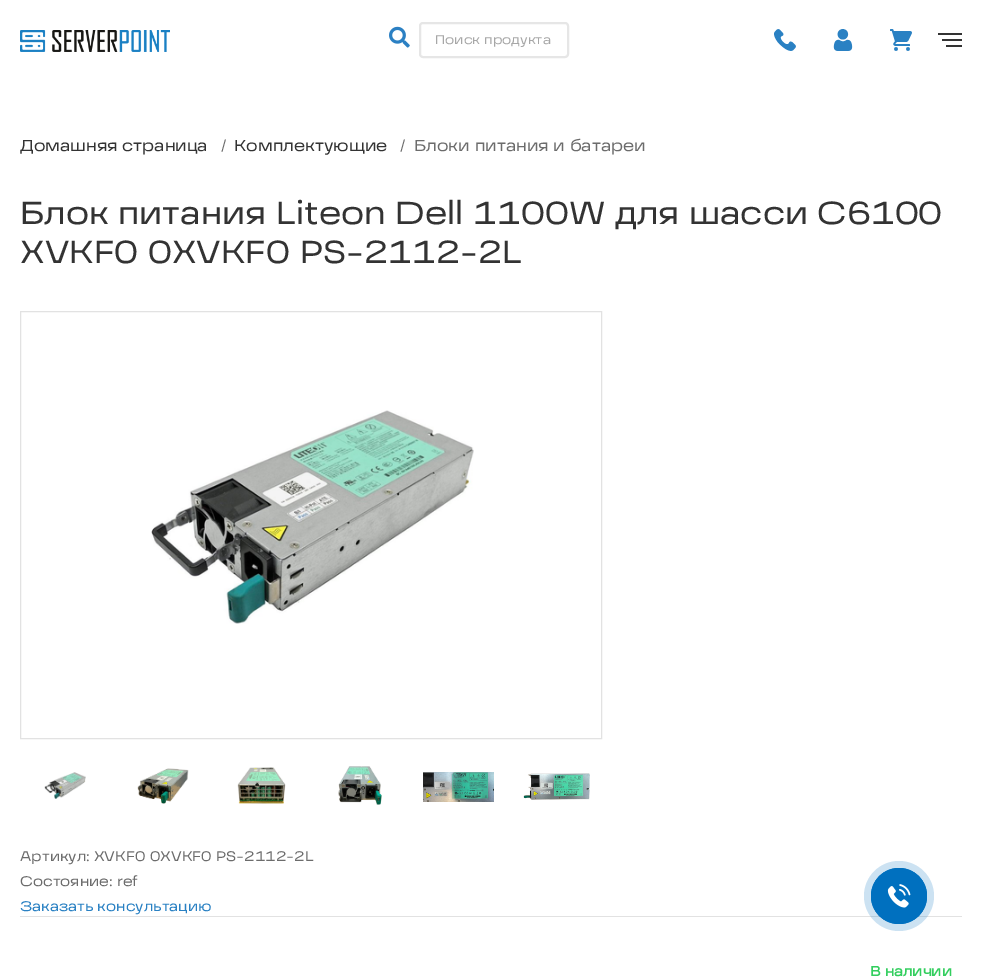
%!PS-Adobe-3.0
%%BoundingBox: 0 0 982 979
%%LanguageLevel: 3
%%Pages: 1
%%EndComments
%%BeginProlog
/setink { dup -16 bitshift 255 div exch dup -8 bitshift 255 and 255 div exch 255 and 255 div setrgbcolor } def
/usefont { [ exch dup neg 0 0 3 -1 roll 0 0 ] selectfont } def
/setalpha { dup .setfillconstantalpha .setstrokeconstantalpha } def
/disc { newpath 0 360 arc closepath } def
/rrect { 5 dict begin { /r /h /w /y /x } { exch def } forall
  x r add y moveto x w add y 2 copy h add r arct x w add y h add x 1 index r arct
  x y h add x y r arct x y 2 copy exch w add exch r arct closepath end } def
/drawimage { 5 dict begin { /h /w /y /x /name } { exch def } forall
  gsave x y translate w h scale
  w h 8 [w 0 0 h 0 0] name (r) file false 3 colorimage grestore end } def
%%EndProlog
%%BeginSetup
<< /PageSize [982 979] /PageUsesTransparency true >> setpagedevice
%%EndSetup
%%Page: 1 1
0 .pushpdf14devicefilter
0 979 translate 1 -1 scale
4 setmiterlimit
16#FFFFFF setink
0 0 982 979 rectfill
(img1.raw) 20 30 150 22 drawimage
(img2.raw) 389 26 21 22 drawimage
16#E6E6E6 setink
2 setlinewidth
420 23 148 34 3 rrect stroke
/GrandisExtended-Regular 12.75 usefont
16#A7A7A7 setink
435 44 moveto (Поиск продукта) show
(img3.raw) 774 29 22 22 drawimage
(img4.raw) 833 29 20 22 drawimage
(img5.raw) 890 29 22 22 drawimage
[
    [938 33 24 2 16#333333]
    [942 39 20 2 16#333333]
    [946 45 16 2 16#333333]
] { aload pop setink rectfill } forall
/GrandisExtended-Regular 16 usefont
20 151 moveto (Домашняя страница) show
/GrandisExtended-Regular 14 usefont
16#6C6C6C setink
221 150 moveto (/) show
/GrandisExtended-Regular 16 usefont
16#333333 setink
234 151 moveto (Комплектующие) show
/GrandisExtended-Regular 14 usefont
16#6C6C6C setink
400 150 moveto (/) show
/GrandisExtended-Regular 16 usefont
414 151 moveto (Блоки питания и батареи) show
/GrandisExtended-Regular 32 usefont
16#333333 setink
20 224 moveto (Блок питания Liteon Dell 1100W для шасси C6100) show
20 263 moveto (XVKF0 0XVKF0 PS-2112-2L) show
16#E2E2E2 setink
1 setlinewidth
20.5 311.5 581 427 rectstroke
(img6.raw) 151 410 323 214 drawimage
(img7.raw) 44 772 42 27 drawimage
(img8.raw) 137 768 52 36 drawimage
(img9.raw) 237 767 49 37 drawimage
(img10.raw) 338 766 44 39 drawimage
(img11.raw) 423 772 71 30 drawimage
(img12.raw) 523 773 67 27 drawimage
/GrandisExtended-Regular 14 usefont
16#6C6C6C setink
20 861 moveto (Артикул: XVKF0 0XVKF0 PS-2112-2L) show
20 886 moveto (Состояние: ref) show
16#2A81C3 setink
20 911 moveto (Заказать консультацию) show
16#E2E2E2 setink
20 916 942 1 rectfill
/GrandisExtended-Bold 14 usefont
16#33CE5E setink
870 976 moveto (В наличии) show
0.2 setalpha
16#0070BF setink
899 896 35 disc fill
1 setalpha
0.8 setlinewidth
899 896 27.6 disc stroke
899 896 28 disc fill
(img13.raw) 887 884 24 24 drawimage
.poppdf14devicefilter showpage
%%EOF
